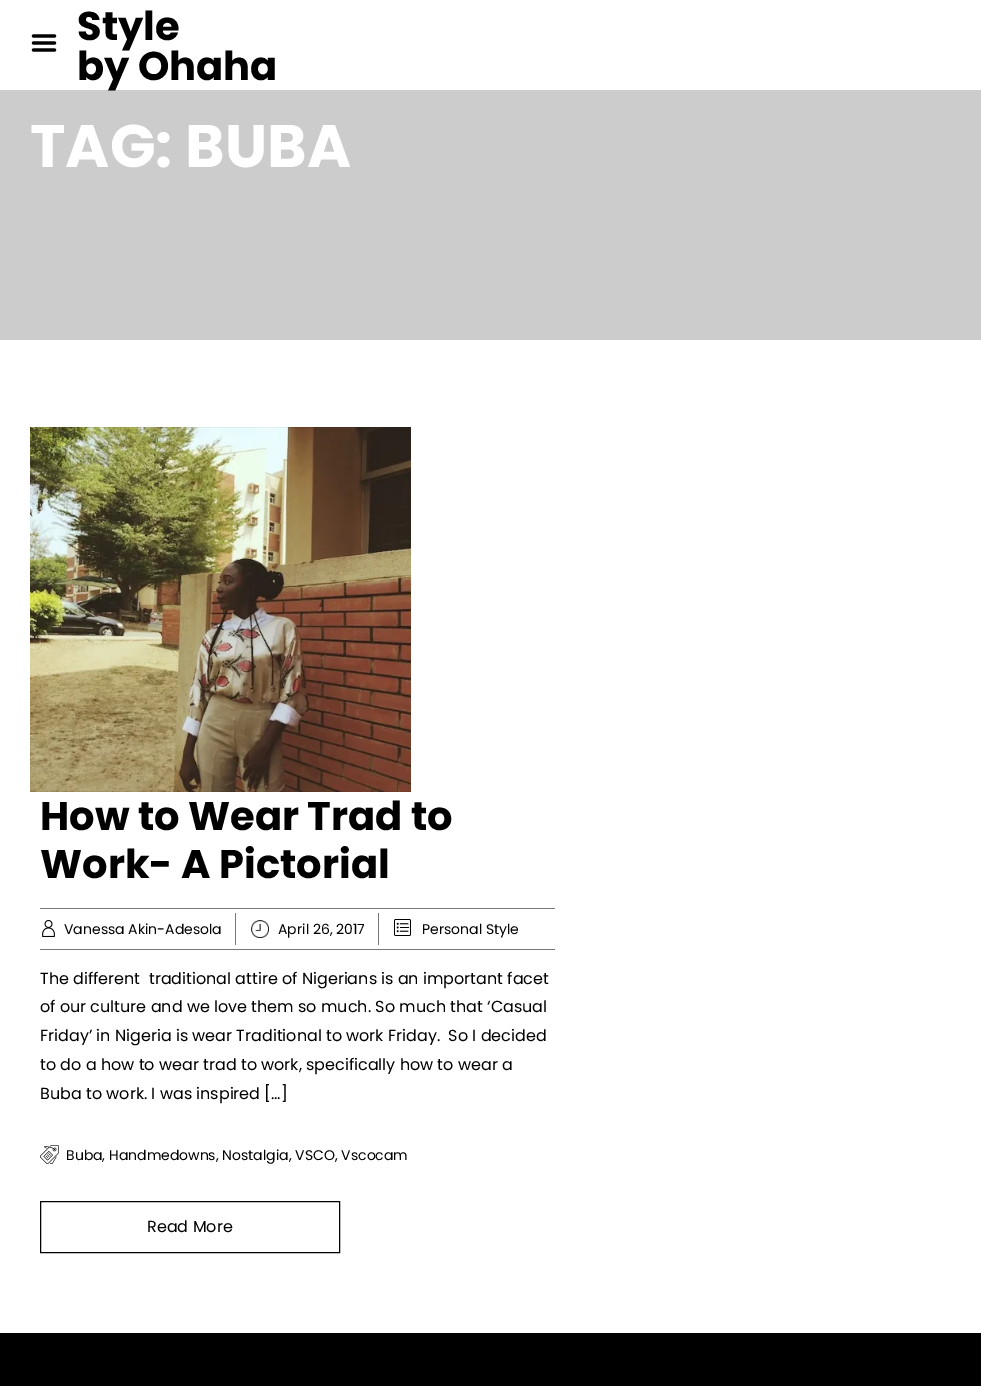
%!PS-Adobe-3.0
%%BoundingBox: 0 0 981 1386
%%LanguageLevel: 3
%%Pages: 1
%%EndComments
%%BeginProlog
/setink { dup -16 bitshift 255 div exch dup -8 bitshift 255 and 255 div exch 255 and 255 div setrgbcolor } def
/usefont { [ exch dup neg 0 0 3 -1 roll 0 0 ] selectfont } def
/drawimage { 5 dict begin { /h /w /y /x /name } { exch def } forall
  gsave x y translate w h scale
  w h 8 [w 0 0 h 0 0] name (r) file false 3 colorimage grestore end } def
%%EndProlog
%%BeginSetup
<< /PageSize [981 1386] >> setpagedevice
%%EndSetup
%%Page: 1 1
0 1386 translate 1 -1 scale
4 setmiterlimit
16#FFFFFF setink
0 0 981 1386 rectfill
(img1.raw) 31 34 26 18 drawimage
/Poppins-Bold 40 usefont
16#000000 setink
77 40 moveto (Style) show
16#CCCCCC setink
0 90 981 250 rectfill
16#000000 setink
77 80 moveto (by Ohaha) show
/Poppins-Bold 60 usefont
16#FFFFFF setink
30 167 moveto (TAG: BUBA) show
(img2.raw) 30 427 381 365 drawimage
/Poppins-Bold 40 usefont
16#000000 setink
40 830 moveto (How to Wear Trad to) show
40 878 moveto (Work- A Pictorial) show
16#777777 setink
40 908 515 1 rectfill
40 949 515 1 rectfill
(img3.raw) 42 920 13 17 drawimage
/Poppins-Regular 14 usefont
16#000000 setink
64 934 moveto (Vanessa Akin-Adesola) show
16#777777 setink
235 913 1 32 rectfill
(img4.raw) 251 920 18 18 drawimage
16#000000 setink
278 934 moveto (April 26, 2017) show
(img5.raw) 394 919 17 17 drawimage
16#777777 setink
378 913 1 32 rectfill
16#000000 setink
422 934 moveto (Personal Style) show
/Poppins-Regular 16 usefont
[
    [(The different  traditional attire of Nigerians is an important facet) 40 984]
    [(of our culture and we love them so much. So much that ‘Casual) 40 1012]
    [(Friday’ in Nigeria is wear Traditional to work Friday.  So I decided) 40 1041]
    [(to do a how to wear trad to work, specifically how to wear a) 40 1070]
    [(Buba to work. I was inspired […]) 40 1099]
] { aload pop moveto show } forall
(img6.raw) 40 1145 19 19 drawimage
/Poppins-Regular 14 usefont
66 1160 moveto (Buba, Handmedowns, Nostalgia, VSCO, Vscocam) show
40.5 1201.5 299 51 rectstroke
/Poppins-Regular 16 usefont
147 1232 moveto (Read More) show
0 1333 981 53 rectfill
showpage
%%EOF
